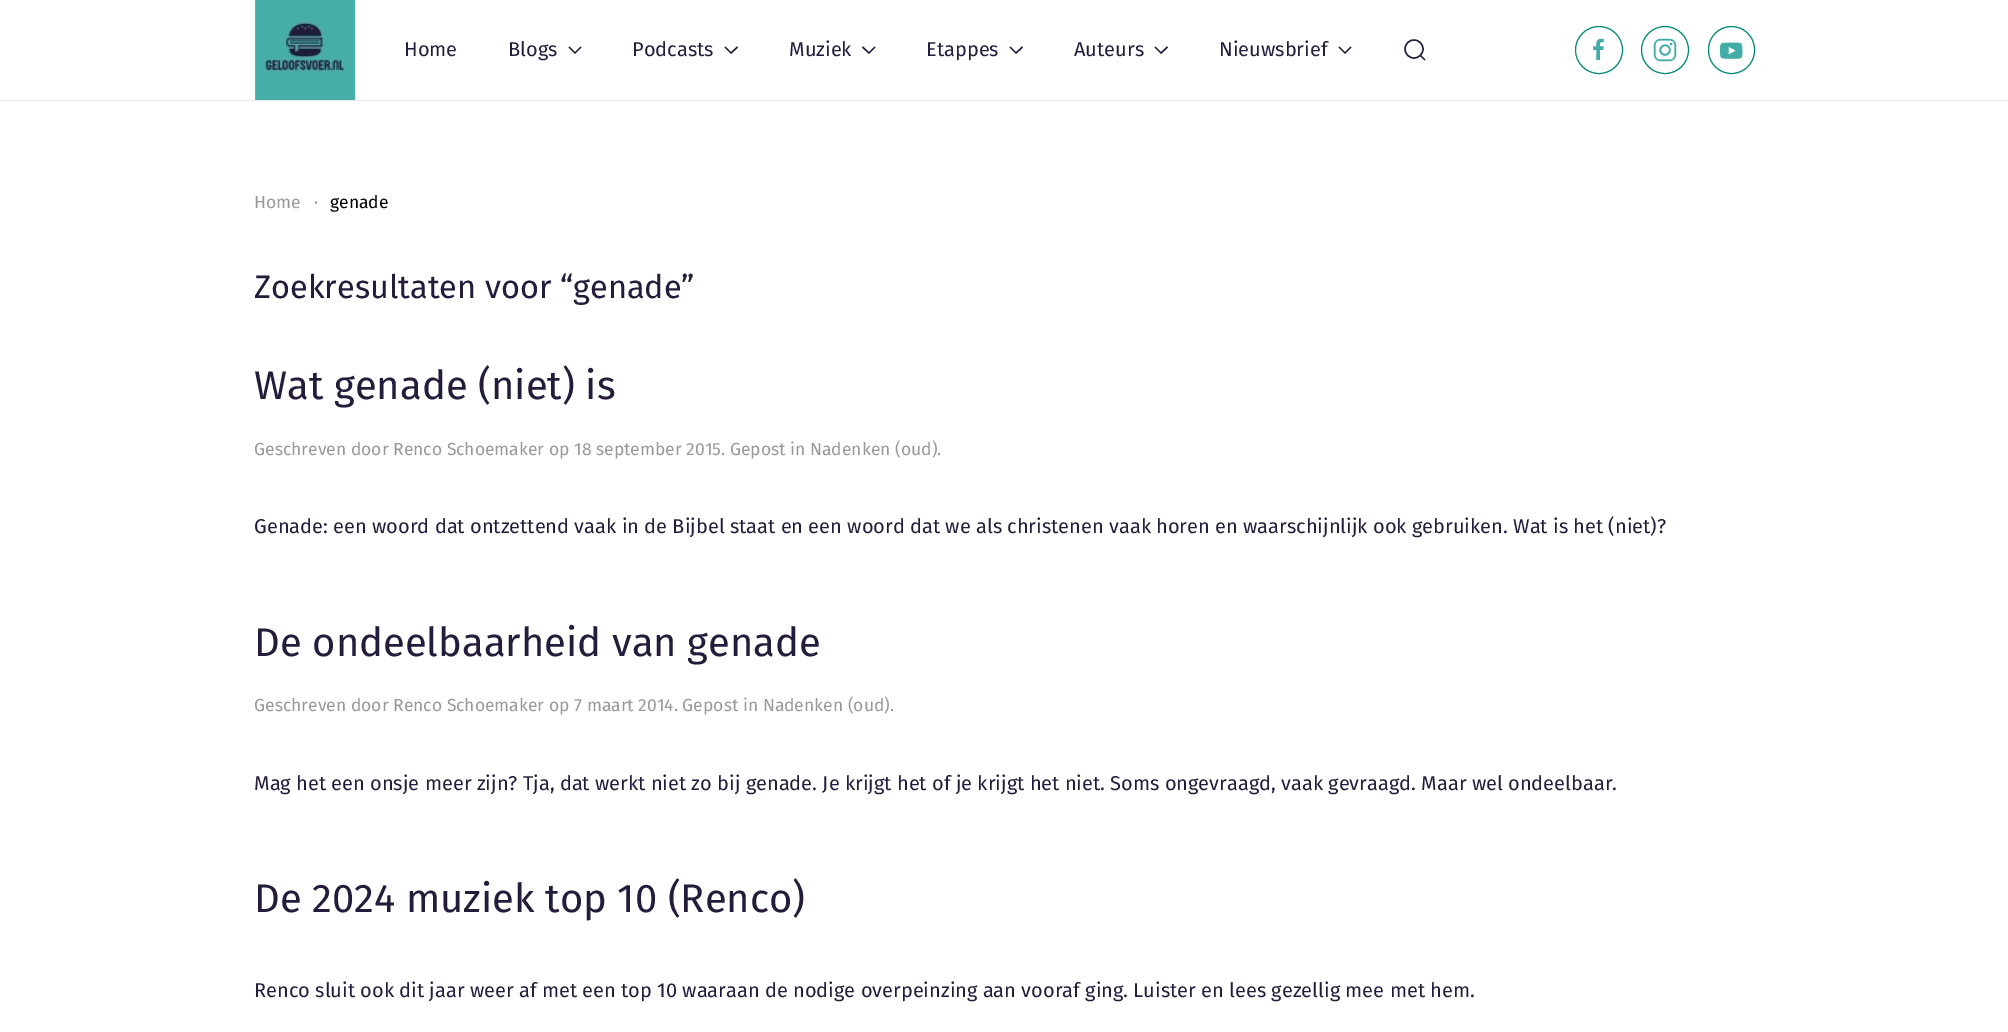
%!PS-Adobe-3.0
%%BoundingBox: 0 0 2008 1032
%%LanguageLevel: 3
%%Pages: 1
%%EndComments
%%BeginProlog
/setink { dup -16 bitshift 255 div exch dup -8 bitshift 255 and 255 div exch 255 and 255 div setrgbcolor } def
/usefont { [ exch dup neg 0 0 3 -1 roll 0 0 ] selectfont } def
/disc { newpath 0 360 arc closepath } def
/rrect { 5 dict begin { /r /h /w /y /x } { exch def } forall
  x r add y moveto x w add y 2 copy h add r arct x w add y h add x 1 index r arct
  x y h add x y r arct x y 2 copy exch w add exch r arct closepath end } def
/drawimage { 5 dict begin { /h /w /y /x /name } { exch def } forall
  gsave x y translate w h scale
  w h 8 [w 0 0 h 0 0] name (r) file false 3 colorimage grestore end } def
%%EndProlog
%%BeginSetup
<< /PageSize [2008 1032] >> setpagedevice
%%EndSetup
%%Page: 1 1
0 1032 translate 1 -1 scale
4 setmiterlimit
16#FFFFFF setink
0 0 2008 1032 rectfill
16#E8E8E8 setink
0 100 2008 1 rectfill
(img1.raw) 254 0 101 100 drawimage
/FiraSans-Regular 20 usefont
16#251B3B setink
404 56 moveto (Home) show
508 56 moveto (Blogs) show
1.4 setlinewidth
569 47 moveto 575 53 lineto 581 47 lineto stroke
632 56 moveto (Podcasts) show
725 47 moveto 731 53 lineto 737.5 47 lineto stroke
789 56 moveto (Muziek) show
862.5 47 moveto 869 53 lineto 875 47 lineto stroke
926 56 moveto (Etappes) show
1010 47 moveto 1016 53 lineto 1022.5 47 lineto stroke
1074 56 moveto (Auteurs) show
1155 47 moveto 1161 53 lineto 1167.5 47 lineto stroke
1219 56 moveto (Nieuwsbrief) show
1339 47 moveto 1345 53 lineto 1351 47 lineto stroke
1414 49 9 disc stroke
1420 55 moveto 1425 60 lineto closepath stroke
16#008776 setink
1 setlinewidth
1599 50 23.5 disc stroke
(img2.raw) 1593 38 11 22 drawimage
1665 50 23.5 disc stroke
(img3.raw) 1653 38 24 24 drawimage
1708.5 26.5 46 47 23 rrect stroke
(img4.raw) 1720 42 23 17 drawimage
/FiraSans-Regular 17.5 usefont
16#999999 setink
254 208 moveto (Home) show
314 208 moveto (·) show
16#000000 setink
330 208 moveto (genade) show
/FiraSans-Regular 32.5 usefont
16#251B3B setink
254 298 moveto (Zoekresultaten voor “genade”) show
/FiraSans-Regular 40 usefont
254 399 moveto (Wat genade \(niet\) is) show
/FiraSans-Regular 17.5 usefont
16#999999 setink
254 455 moveto (Geschreven door Renco Schoemaker op 18 september 2015. Gepost in Nadenken \(oud\).) show
/FiraSans-Regular 20 usefont
16#251B3B setink
254 533 moveto (Genade: een woord dat ontzettend vaak in de Bijbel staat en een woord dat we als christenen vaak horen en waarschijnlijk ook gebruiken. Wat is het \(niet\)?) show
/FiraSans-Regular 40 usefont
254 656 moveto (De ondeelbaarheid van genade) show
/FiraSans-Regular 17.5 usefont
16#999999 setink
254 711 moveto (Geschreven door Renco Schoemaker op 7 maart 2014. Gepost in Nadenken \(oud\).) show
/FiraSans-Regular 20 usefont
16#251B3B setink
254 790 moveto (Mag het een onsje meer zijn? Tja, dat werkt niet zo bij genade. Je krijgt het of je krijgt het niet. Soms ongevraagd, vaak gevraagd. Maar wel ondeelbaar.) show
/FiraSans-Regular 40 usefont
254 912 moveto (De 2024 muziek top 10 \(Renco\)) show
/FiraSans-Regular 20 usefont
254 997 moveto (Renco sluit ook dit jaar weer af met een top 10 waaraan de nodige overpeinzing aan vooraf ging. Luister en lees gezellig mee met hem.) show
showpage
%%EOF
